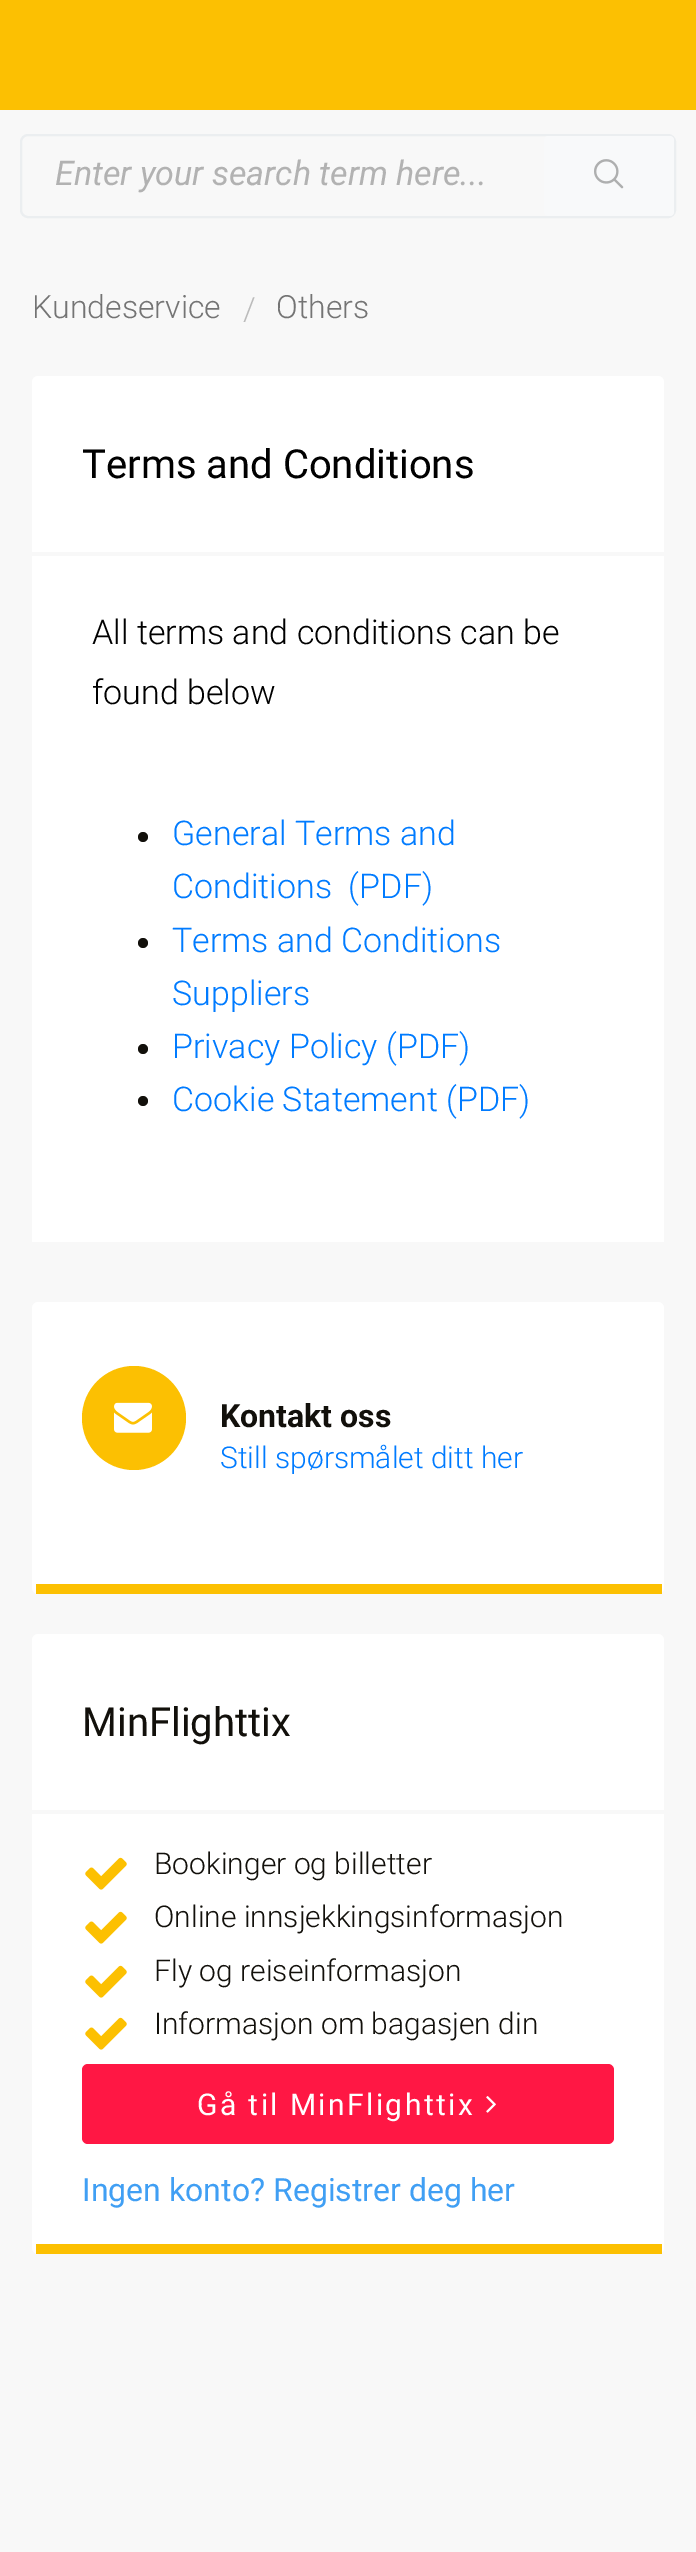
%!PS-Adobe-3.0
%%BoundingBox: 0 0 696 2552
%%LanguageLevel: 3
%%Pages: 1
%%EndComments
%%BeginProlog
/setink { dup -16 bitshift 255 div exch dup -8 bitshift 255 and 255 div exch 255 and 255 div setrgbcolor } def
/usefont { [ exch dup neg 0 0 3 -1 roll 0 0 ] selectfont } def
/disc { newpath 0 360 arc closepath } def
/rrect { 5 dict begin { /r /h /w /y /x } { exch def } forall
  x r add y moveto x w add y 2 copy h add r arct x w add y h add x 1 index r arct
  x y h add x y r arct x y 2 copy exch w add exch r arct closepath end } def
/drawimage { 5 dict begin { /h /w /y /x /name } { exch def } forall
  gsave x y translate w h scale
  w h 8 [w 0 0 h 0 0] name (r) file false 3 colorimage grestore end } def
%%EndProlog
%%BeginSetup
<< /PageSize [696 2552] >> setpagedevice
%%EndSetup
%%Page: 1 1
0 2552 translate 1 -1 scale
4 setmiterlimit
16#F8F8F8 setink
0 0 696 2552 rectfill
16#FCC002 setink
0 0 696 110 rectfill
16#EBEEF0 setink
2 setlinewidth
21 135 654 82 7 rrect stroke
/Roboto-Italic 34 usefont
16#B2B2B2 setink
55 185 moveto (Enter your search term here...) show
16#F8F9FA setink
544 136 130 80 4 rrect fill
(img1.raw) 594 159 30 30 drawimage
/Roboto-Light 32 usefont
16#747474 setink
32 318 moveto (Kundeservice) show
16#BBBBBB setink
243 320 moveto (/) show
16#747474 setink
276 318 moveto (Others) show
16#FFFFFF setink
38 376 moveto 658 376 lineto 661.5 376 664 378.5 664 382 curveto 664 556 lineto 32 556 lineto 32 382 lineto 32 378.5 34.5 376 38 376 curveto closepath fill
16#F8F8F8 setink
32 552 632 4 rectfill
/Roboto-Regular 40 usefont
16#000000 setink
82 478 moveto (Terms and Conditions) show
16#FFFFFF setink
32 556 632 686 rectfill
/Roboto-Light 34 usefont
16#000000 setink
92 644 moveto (All terms and conditions can be) show
92 704 moveto (found below) show
16#12100B setink
143 837 5 disc fill
16#007BFF setink
172 845 moveto (General Terms and) show
172 898 moveto (Conditions  \(PDF\)) show
16#12100B setink
143 943 5 disc fill
16#007BFF setink
172 952 moveto (Terms and Conditions) show
172 1005 moveto (Suppliers) show
16#12100B setink
143 1049 5 disc fill
16#007BFF setink
172 1058 moveto (Privacy Policy \(PDF\)) show
16#12100B setink
143 1101 5 disc fill
16#007BFF setink
172 1111 moveto (Cookie Statement \(PDF\)) show
16#FFFFFF setink
32 1302 632 292 6 rrect fill
16#FCC002 setink
36 1584 626 10 rectfill
134 1418 52 disc fill
(img2.raw) 114 1402 38 31 drawimage
/Roboto-Bold 32 usefont
16#12100B setink
220 1427 moveto (Kontakt oss) show
/Roboto-Light 30 usefont
16#007BFF setink
220 1468 moveto (Still spørsmålet ditt her) show
16#FFFFFF setink
32 1634 632 620 6 rrect fill
16#FCC002 setink
36 2244 626 10 rectfill
16#F8F8F8 setink
32 1810 632 4 rectfill
/Roboto-Regular 40 usefont
16#12100B setink
82 1736 moveto (MinFlighttix) show
(img3.raw) 85 1857 42 33 drawimage
/Roboto-Light 30 usefont
154 1874 moveto (Bookinger og billetter) show
(img3.raw) 85 1911 42 33 drawimage
154 1927 moveto (Online innsjekkingsinformasjon) show
(img3.raw) 85 1965 42 33 drawimage
154 1981 moveto (Fly og reiseinformasjon) show
(img3.raw) 85 2017 42 33 drawimage
154 2034 moveto (Informasjon om bagasjen din) show
16#FF1744 setink
82 2064 532 80 6 rrect fill
/Roboto-Regular 30 usefont
16#FFFFFF setink
197 2115 moveto 2.4 0 (Gå til MinFlighttix) ashow
(img4.raw) 486 2096 10 17 drawimage
/Roboto-Regular 32 usefont
16#409FF4 setink
82 2201 moveto (Ingen konto? Registrer deg her) show
showpage
%%EOF
